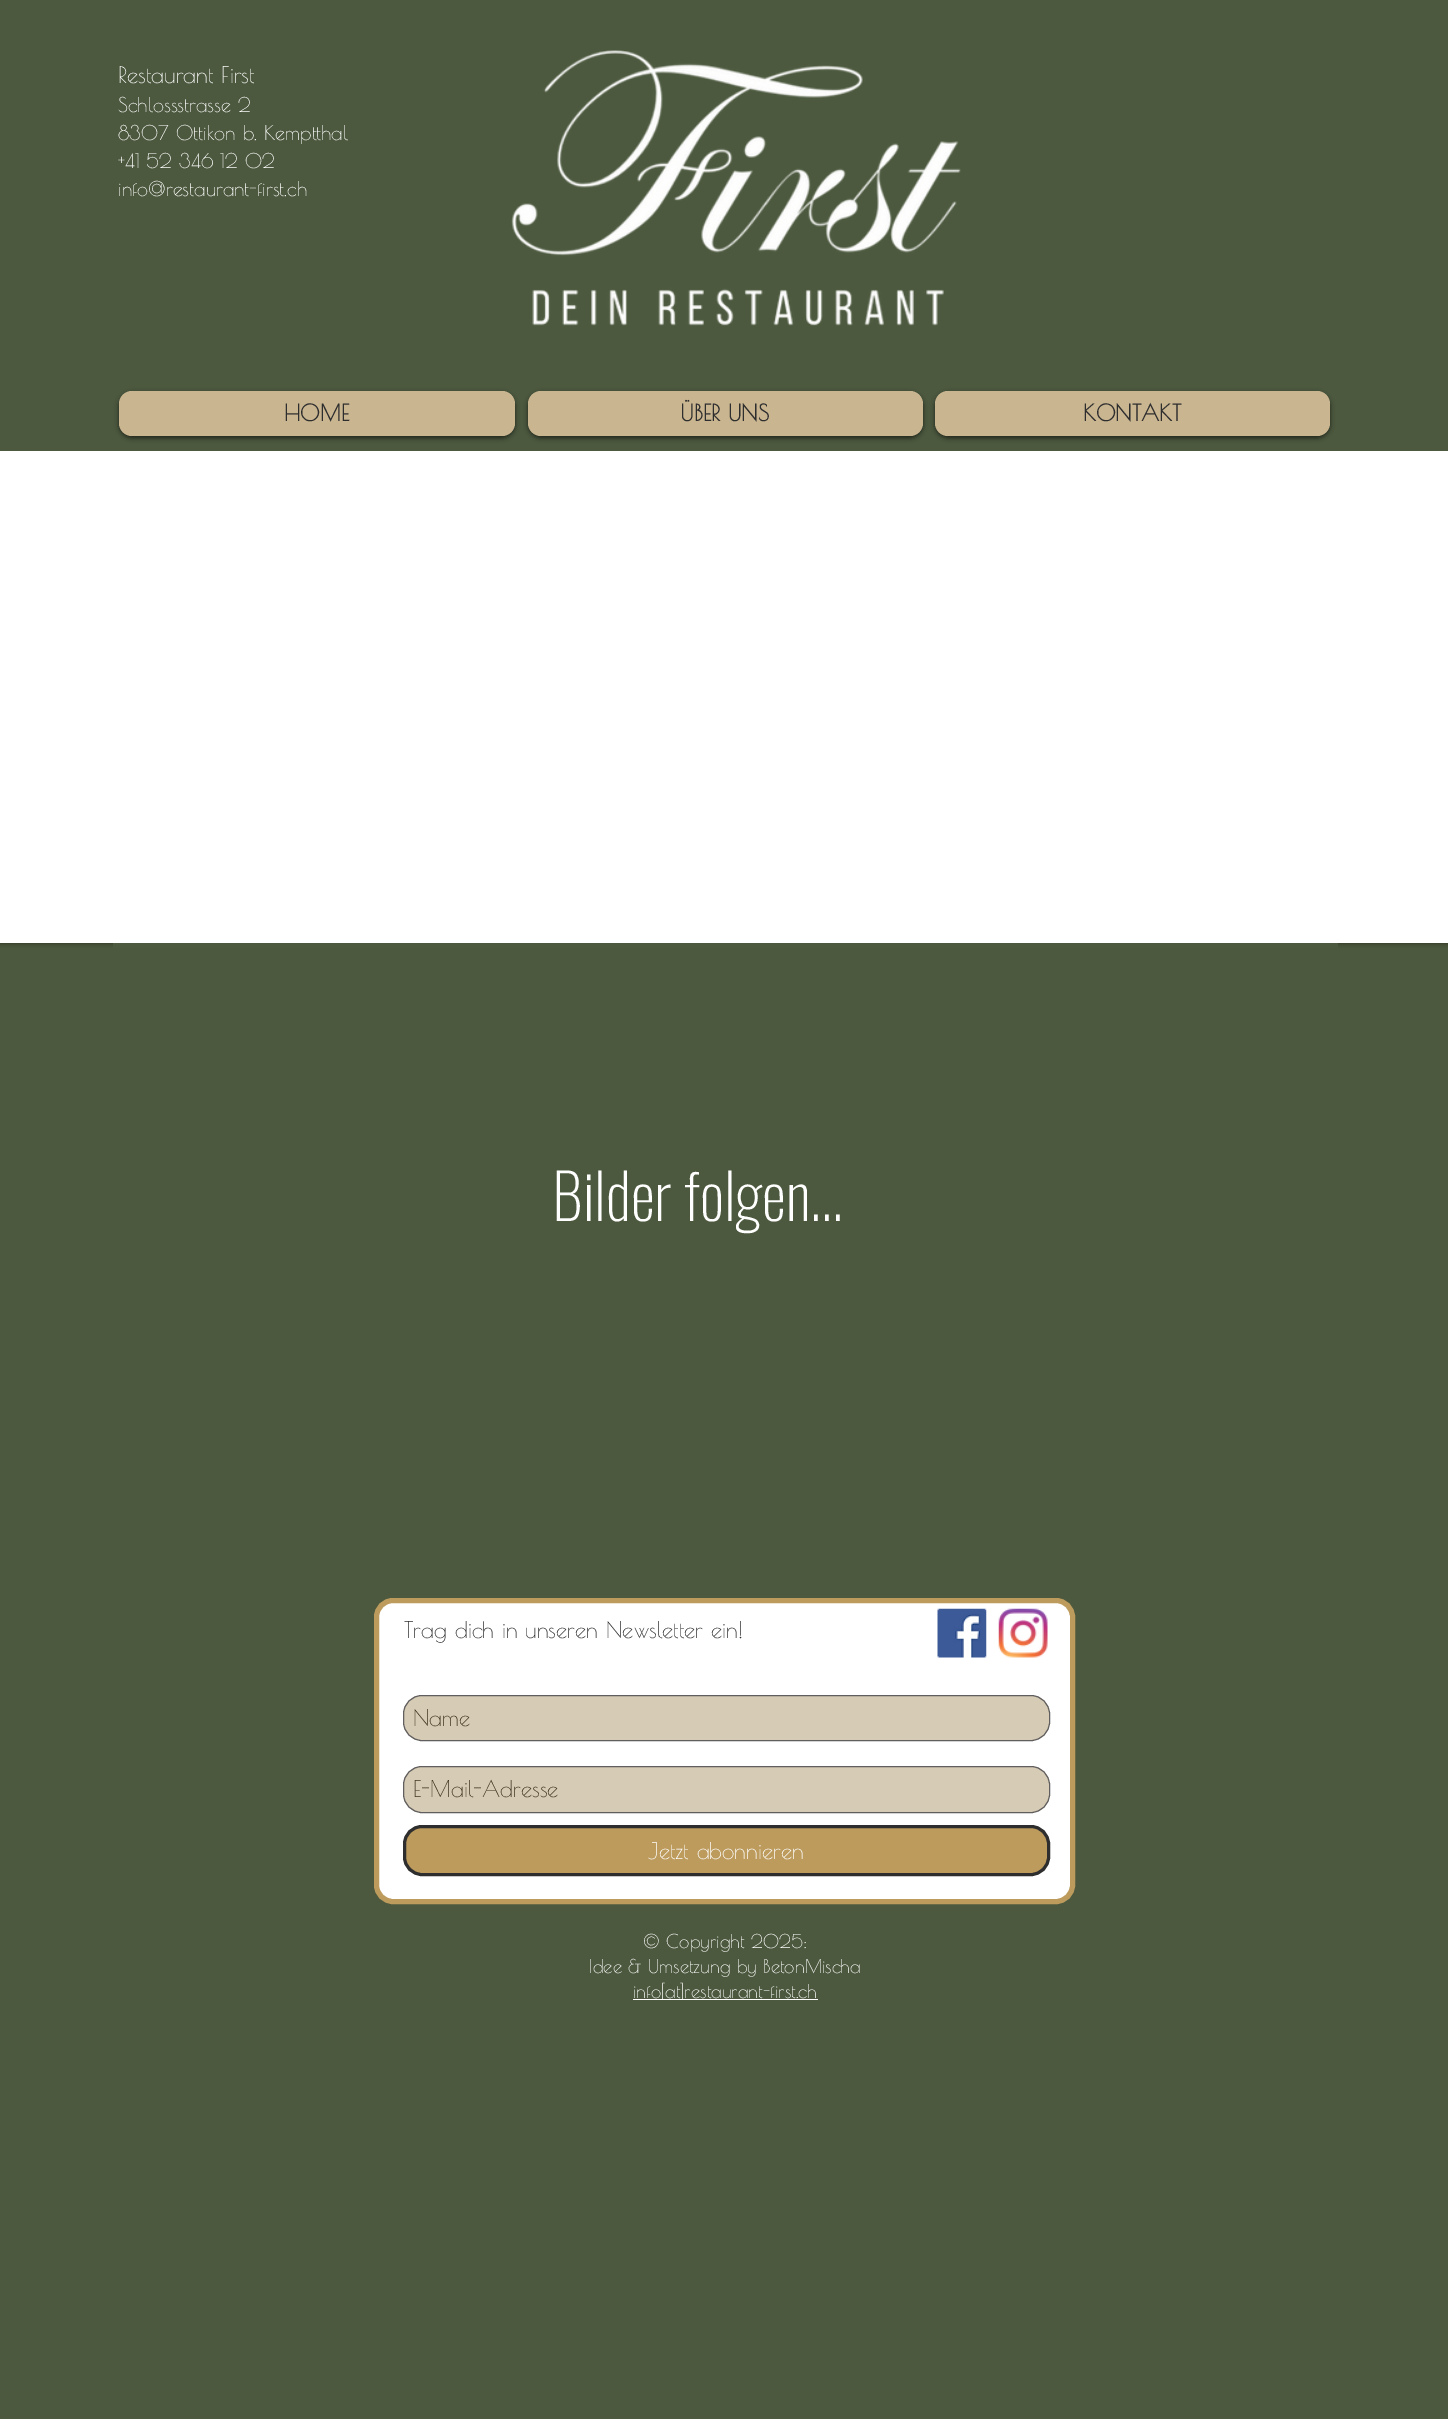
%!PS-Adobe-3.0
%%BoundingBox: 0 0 1448 2419
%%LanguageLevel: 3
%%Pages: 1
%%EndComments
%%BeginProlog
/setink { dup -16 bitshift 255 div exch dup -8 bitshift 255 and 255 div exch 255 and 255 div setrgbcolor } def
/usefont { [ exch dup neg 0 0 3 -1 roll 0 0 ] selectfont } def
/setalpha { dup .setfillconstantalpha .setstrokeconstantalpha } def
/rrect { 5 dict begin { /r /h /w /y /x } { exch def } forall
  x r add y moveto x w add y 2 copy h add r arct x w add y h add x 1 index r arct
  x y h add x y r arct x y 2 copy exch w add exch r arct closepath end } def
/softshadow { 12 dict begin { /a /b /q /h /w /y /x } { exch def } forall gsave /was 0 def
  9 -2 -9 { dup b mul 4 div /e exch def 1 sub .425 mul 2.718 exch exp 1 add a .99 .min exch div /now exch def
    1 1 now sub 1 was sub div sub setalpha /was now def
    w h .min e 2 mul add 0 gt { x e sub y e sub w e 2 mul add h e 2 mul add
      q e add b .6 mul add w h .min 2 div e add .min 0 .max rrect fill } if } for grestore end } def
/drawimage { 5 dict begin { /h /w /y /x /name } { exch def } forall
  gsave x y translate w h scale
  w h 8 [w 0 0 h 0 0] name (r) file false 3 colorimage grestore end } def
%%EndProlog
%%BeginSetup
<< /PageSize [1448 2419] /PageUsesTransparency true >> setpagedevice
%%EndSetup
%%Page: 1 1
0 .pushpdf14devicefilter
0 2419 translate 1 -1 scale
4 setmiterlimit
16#4C593E setink
0 0 1448 2419 rectfill
16#000000 setink
0 0 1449 943 0 3 0.5 softshadow
16#4C593E setink
0 0 1448 451 rectfill
/PoiretOne-Regular 22.5 usefont
16#FFFFFF setink
118 83 moveto (Restaurant First) show
/PoiretOne-Regular 20 usefont
[
    [(Schlossstrasse 2) 118 112]
    [(8307 Ottikon b. Kemptthal) 118 140]
    [(+41 52 346 12 02) 118 168]
    [(info@restaurant-first.ch) 118 196]
] { aload pop moveto show } forall
(img1.raw) 511 50 450 276 drawimage
16#000000 setink
119 393 396 45 13 2.5 0.6 softshadow
16#C9B691 setink
119 391 396 45 13 rrect fill
/PoiretOne-Bold 22.5 usefont
16#2F2E2E setink
284 421 moveto (HOME) show
16#000000 setink
528 393 395 45 13 2.5 0.6 softshadow
16#C9B691 setink
528 391 395 45 13 rrect fill
16#2F2E2E setink
680 421 moveto (ÜBER UNS) show
16#000000 setink
935 393 395 45 13 2.5 0.6 softshadow
16#C9B691 setink
935 391 395 45 13 rrect fill
16#2F2E2E setink
1083 421 moveto (KONTAKT) show
16#FFFFFF setink
0 451 1448 492 rectfill
16#4C593E setink
113 943 1225 5 rectfill
/Oswald-ExtraLight 62.5 usefont
16#FFFFFF setink
552 1221 moveto (Bilder folgen...) show
376.5 1600.5 696 301 16.5 rrect gsave fill grestore
16#BC9B5D setink
5 setlinewidth
stroke
/PoiretOne-Regular 22.5 usefont
16#2F2E2E setink
404 1638 moveto (Trag dich in unseren Newsletter ein!) show
(img2.raw) 937 1608 50 50 drawimage
(img3.raw) 998 1608 50 50 drawimage
16#D6CBB4 setink
403.5 1695.5 646 45 18.5 rrect gsave fill grestore
16#605E5E setink
1 setlinewidth
stroke
16#3F341F setink
413 1726 moveto (Name) show
16#D6CBB4 setink
403.5 1766.5 646 46 18.5 rrect gsave fill grestore
16#605E5E setink
stroke
16#3F341F setink
413 1797 moveto (E-Mail-Adresse) show
16#BC9B5D setink
404.5 1826.5 644 48 17.5 rrect gsave fill grestore
16#2F2E2E setink
3 setlinewidth
stroke
16#FFFFFF setink
648 1859 moveto (Jetzt abonnieren) show
/PoiretOne-Regular 18.75 usefont
643 1948 moveto (© Copyright 2025:) show
589 1973 moveto (Idee & Umsetzung by BetonMischa) show
633 1999 185 1 rectfill
633 1998 moveto (info[at]restaurant-first.ch) show
.poppdf14devicefilter showpage
%%EOF
